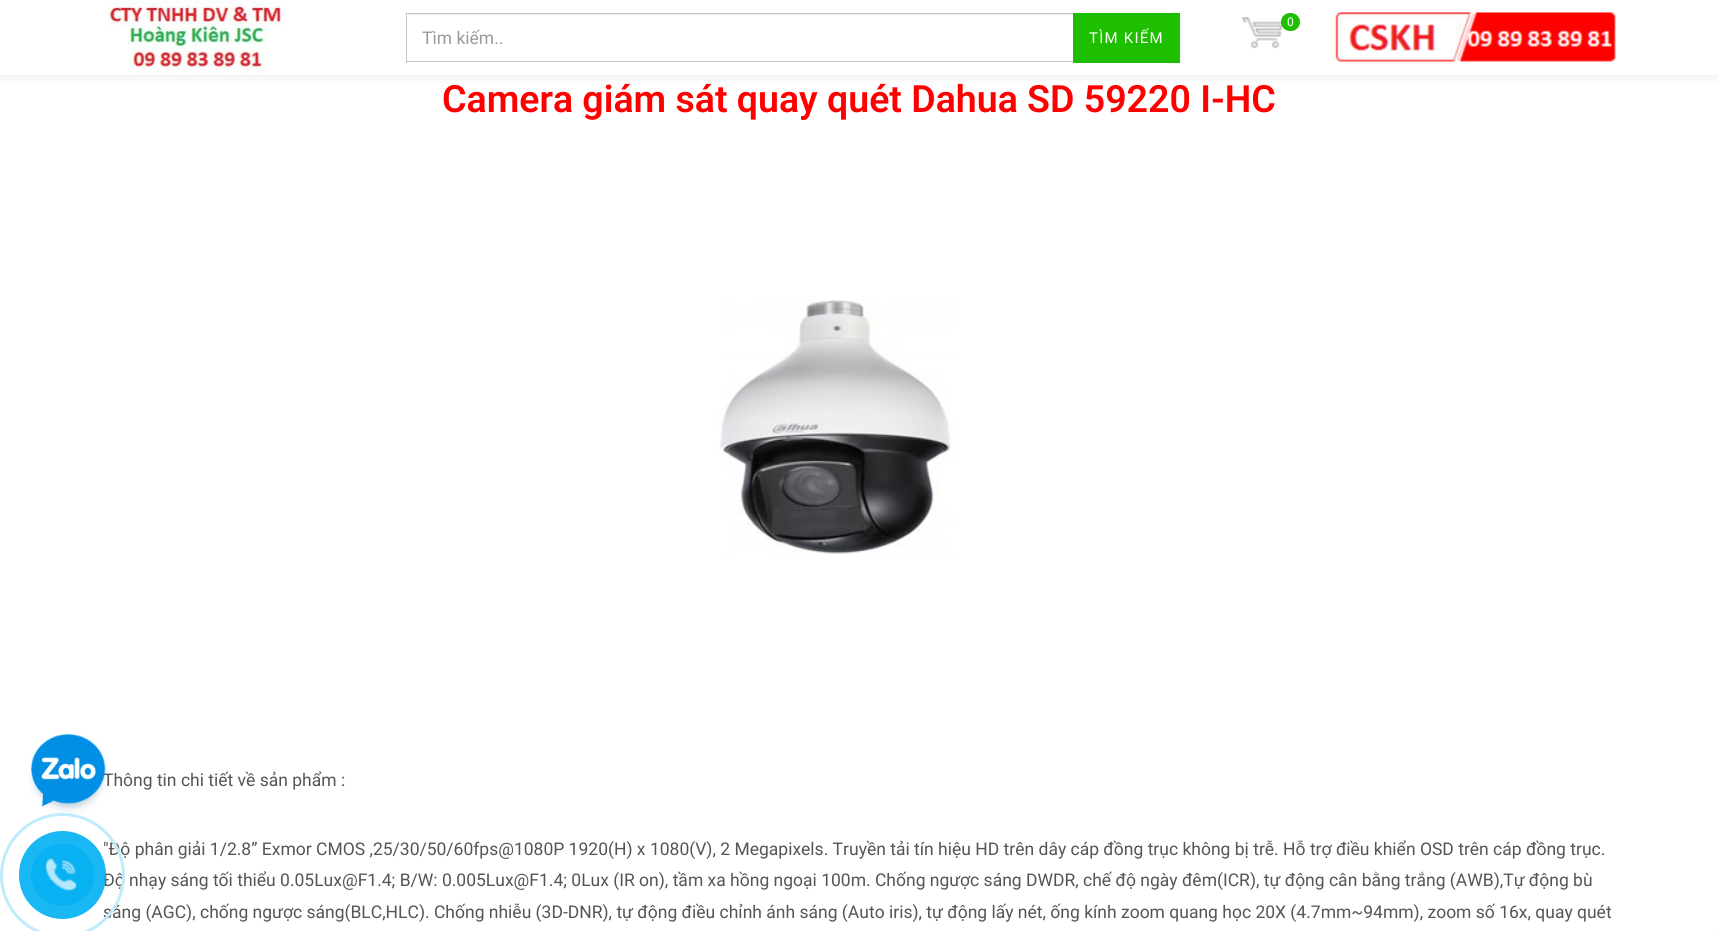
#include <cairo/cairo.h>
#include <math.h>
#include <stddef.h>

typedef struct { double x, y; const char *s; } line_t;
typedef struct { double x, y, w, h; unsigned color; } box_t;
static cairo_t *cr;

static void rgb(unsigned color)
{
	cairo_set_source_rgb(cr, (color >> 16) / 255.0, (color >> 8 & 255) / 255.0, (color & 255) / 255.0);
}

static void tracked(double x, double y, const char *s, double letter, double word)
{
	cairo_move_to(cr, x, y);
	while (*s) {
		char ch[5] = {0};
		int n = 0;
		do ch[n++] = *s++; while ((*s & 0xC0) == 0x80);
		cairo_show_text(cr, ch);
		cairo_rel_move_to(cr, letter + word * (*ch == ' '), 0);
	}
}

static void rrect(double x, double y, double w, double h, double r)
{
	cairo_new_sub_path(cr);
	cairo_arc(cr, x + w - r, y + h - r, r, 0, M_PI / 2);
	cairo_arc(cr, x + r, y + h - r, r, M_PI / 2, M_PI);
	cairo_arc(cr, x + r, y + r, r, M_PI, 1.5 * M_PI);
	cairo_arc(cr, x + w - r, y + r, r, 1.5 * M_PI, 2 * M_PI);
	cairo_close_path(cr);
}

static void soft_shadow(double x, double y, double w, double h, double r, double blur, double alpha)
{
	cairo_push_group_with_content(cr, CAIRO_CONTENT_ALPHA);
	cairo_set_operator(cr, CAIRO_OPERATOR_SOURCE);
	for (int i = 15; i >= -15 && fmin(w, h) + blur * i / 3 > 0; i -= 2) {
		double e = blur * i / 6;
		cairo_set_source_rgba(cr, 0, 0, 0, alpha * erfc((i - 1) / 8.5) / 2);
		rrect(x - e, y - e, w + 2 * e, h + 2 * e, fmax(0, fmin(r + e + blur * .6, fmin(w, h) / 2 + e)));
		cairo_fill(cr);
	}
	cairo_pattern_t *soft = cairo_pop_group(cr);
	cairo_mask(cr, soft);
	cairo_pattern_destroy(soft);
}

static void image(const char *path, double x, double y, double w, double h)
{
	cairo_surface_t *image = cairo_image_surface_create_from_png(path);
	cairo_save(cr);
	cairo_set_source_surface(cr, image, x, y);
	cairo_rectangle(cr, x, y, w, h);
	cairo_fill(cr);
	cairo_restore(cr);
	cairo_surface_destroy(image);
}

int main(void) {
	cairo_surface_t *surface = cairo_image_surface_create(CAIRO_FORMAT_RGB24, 1718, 931);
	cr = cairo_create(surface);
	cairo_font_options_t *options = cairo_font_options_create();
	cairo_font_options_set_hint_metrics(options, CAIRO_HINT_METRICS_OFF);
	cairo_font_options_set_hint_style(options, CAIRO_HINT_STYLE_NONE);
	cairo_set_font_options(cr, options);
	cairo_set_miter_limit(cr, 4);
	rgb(0xffffff);
	cairo_paint(cr);
	rgb(0x000000);
	soft_shadow(0, 0, 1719, 75, 0, 6, 0.1);
	rgb(0xffffff);
	cairo_rectangle(cr, 0, 0, 1718, 75);
	cairo_fill(cr);
	image("img/2.png", 108, 0, 178, 74);
	image("img/3.png", 1242, 17, 41, 32);
	rgb(0x1dbf00);
	rrect(1281, 13, 19, 18, 9);
	cairo_fill(cr);
	image("img/4.png", 1335, 12, 281, 50);
	{
		static const box_t items[] = {
			{408, 14, 670, 1, 0xececec},
			{406, 13, 672, 1, 0xc6c6c6},
			{406, 61, 672, 1, 0xc6c6c6},
			{406, 13, 1, 50, 0xc6c6c6},
			{1073, 13, 107, 50, 0x1dbf00},
		};
		for (size_t i = 0; i < sizeof items / sizeof *items; i++) {
			rgb(items[i].color);
			cairo_rectangle(cr, items[i].x, items[i].y, items[i].w, items[i].h);
			cairo_fill(cr);
		}
	}
	image("img/5.png", 719, 299, 238, 255);
	rgb(0xf5f5f5);
	cairo_rectangle(cr, 1716, 929, 2, 2);
	cairo_fill(cr);
	cairo_select_font_face(cr, "Roboto", CAIRO_FONT_SLANT_NORMAL, CAIRO_FONT_WEIGHT_NORMAL);
	cairo_set_font_size(cr, 12);
	rgb(0xffffff);
	cairo_move_to(cr, 1287, 26);
	cairo_show_text(cr, "0");
	cairo_set_font_size(cr, 17.5);
	rgb(0x999999);
	cairo_move_to(cr, 422, 44);
	cairo_show_text(cr, "Tìm kiếm..");
	cairo_set_font_size(cr, 15);
	rgb(0xffffff);
	tracked(1089, 43, "TÌM KIẾM", 1.25, 0);
	cairo_select_font_face(cr, "Roboto SemiBold", CAIRO_FONT_SLANT_NORMAL, CAIRO_FONT_WEIGHT_NORMAL);
	cairo_set_font_size(cr, 37.5);
	rgb(0xff0000);
	cairo_move_to(cr, 442, 112);
	cairo_show_text(cr, "Camera giám sát quay quét Dahua SD 59220 I-HC");
	cairo_select_font_face(cr, "Roboto", CAIRO_FONT_SLANT_NORMAL, CAIRO_FONT_WEIGHT_NORMAL);
	cairo_set_font_size(cr, 17.5);
	rgb(0x555555);
	cairo_move_to(cr, 103, 786);
	cairo_show_text(cr, "Thông tin chi tiết về sản phẩm :");
	image("img/1.png", 29, 734, 79, 80);
	{
		static const line_t items[] = {
			{103, 855, "\"Độ phân giải 1/2.8” Exmor CMOS ,25/30/50/60fps@1080P 1920(H) x 1080(V), 2 Megapixels. Truyền tải tín hiệu HD trên dây cáp đồng trục không bị trễ. Hỗ trợ điều khiển OSD trên cáp đồng trục."},
			{103, 886, "Độ nhạy sáng tối thiểu 0.05Lux@F1.4; B/W: 0.005Lux@F1.4; 0Lux (IR on), tầm xa hồng ngoại 100m. Chống ngược sáng DWDR, chế độ ngày đêm(ICR), tự động cân bằng trắng (AWB),Tự động bù"},
			{103, 918, "sáng (AGC), chống ngược sáng(BLC,HLC). Chống nhiễu (3D-DNR), tự động điều chỉnh ánh sáng (Auto iris), tự động lấy nét, ống kính zoom quang học 20X (4.7mm~94mm), zoom số 16x, quay quét"},
		};
		for (size_t i = 0; i < sizeof items / sizeof *items; i++) {
			cairo_move_to(cr, items[i].x, items[i].y);
			cairo_show_text(cr, items[i].s);
		}
	}
	cairo_new_path(cr);
	cairo_arc(cr, 62.5, 875.5, 61, 0, 2 * M_PI);
	rgb(0xbfebfc);
	cairo_set_line_width(cr, 3);
	cairo_stroke(cr);
	cairo_set_source_rgba(cr, 0, 0.686, 0.949, 0.9);
	rrect(19, 831, 87, 88, 43.5);
	cairo_fill(cr);
	rgb(0x08b1f2);
	rrect(31, 844, 63, 62, 31);
	cairo_fill(cr);
	image("img/6.png", 46, 858, 31, 33);
	cairo_surface_write_to_png(surface, "page.png");
	cairo_font_options_destroy(options);
	cairo_destroy(cr);
	cairo_surface_destroy(surface);
	return 0;
}
